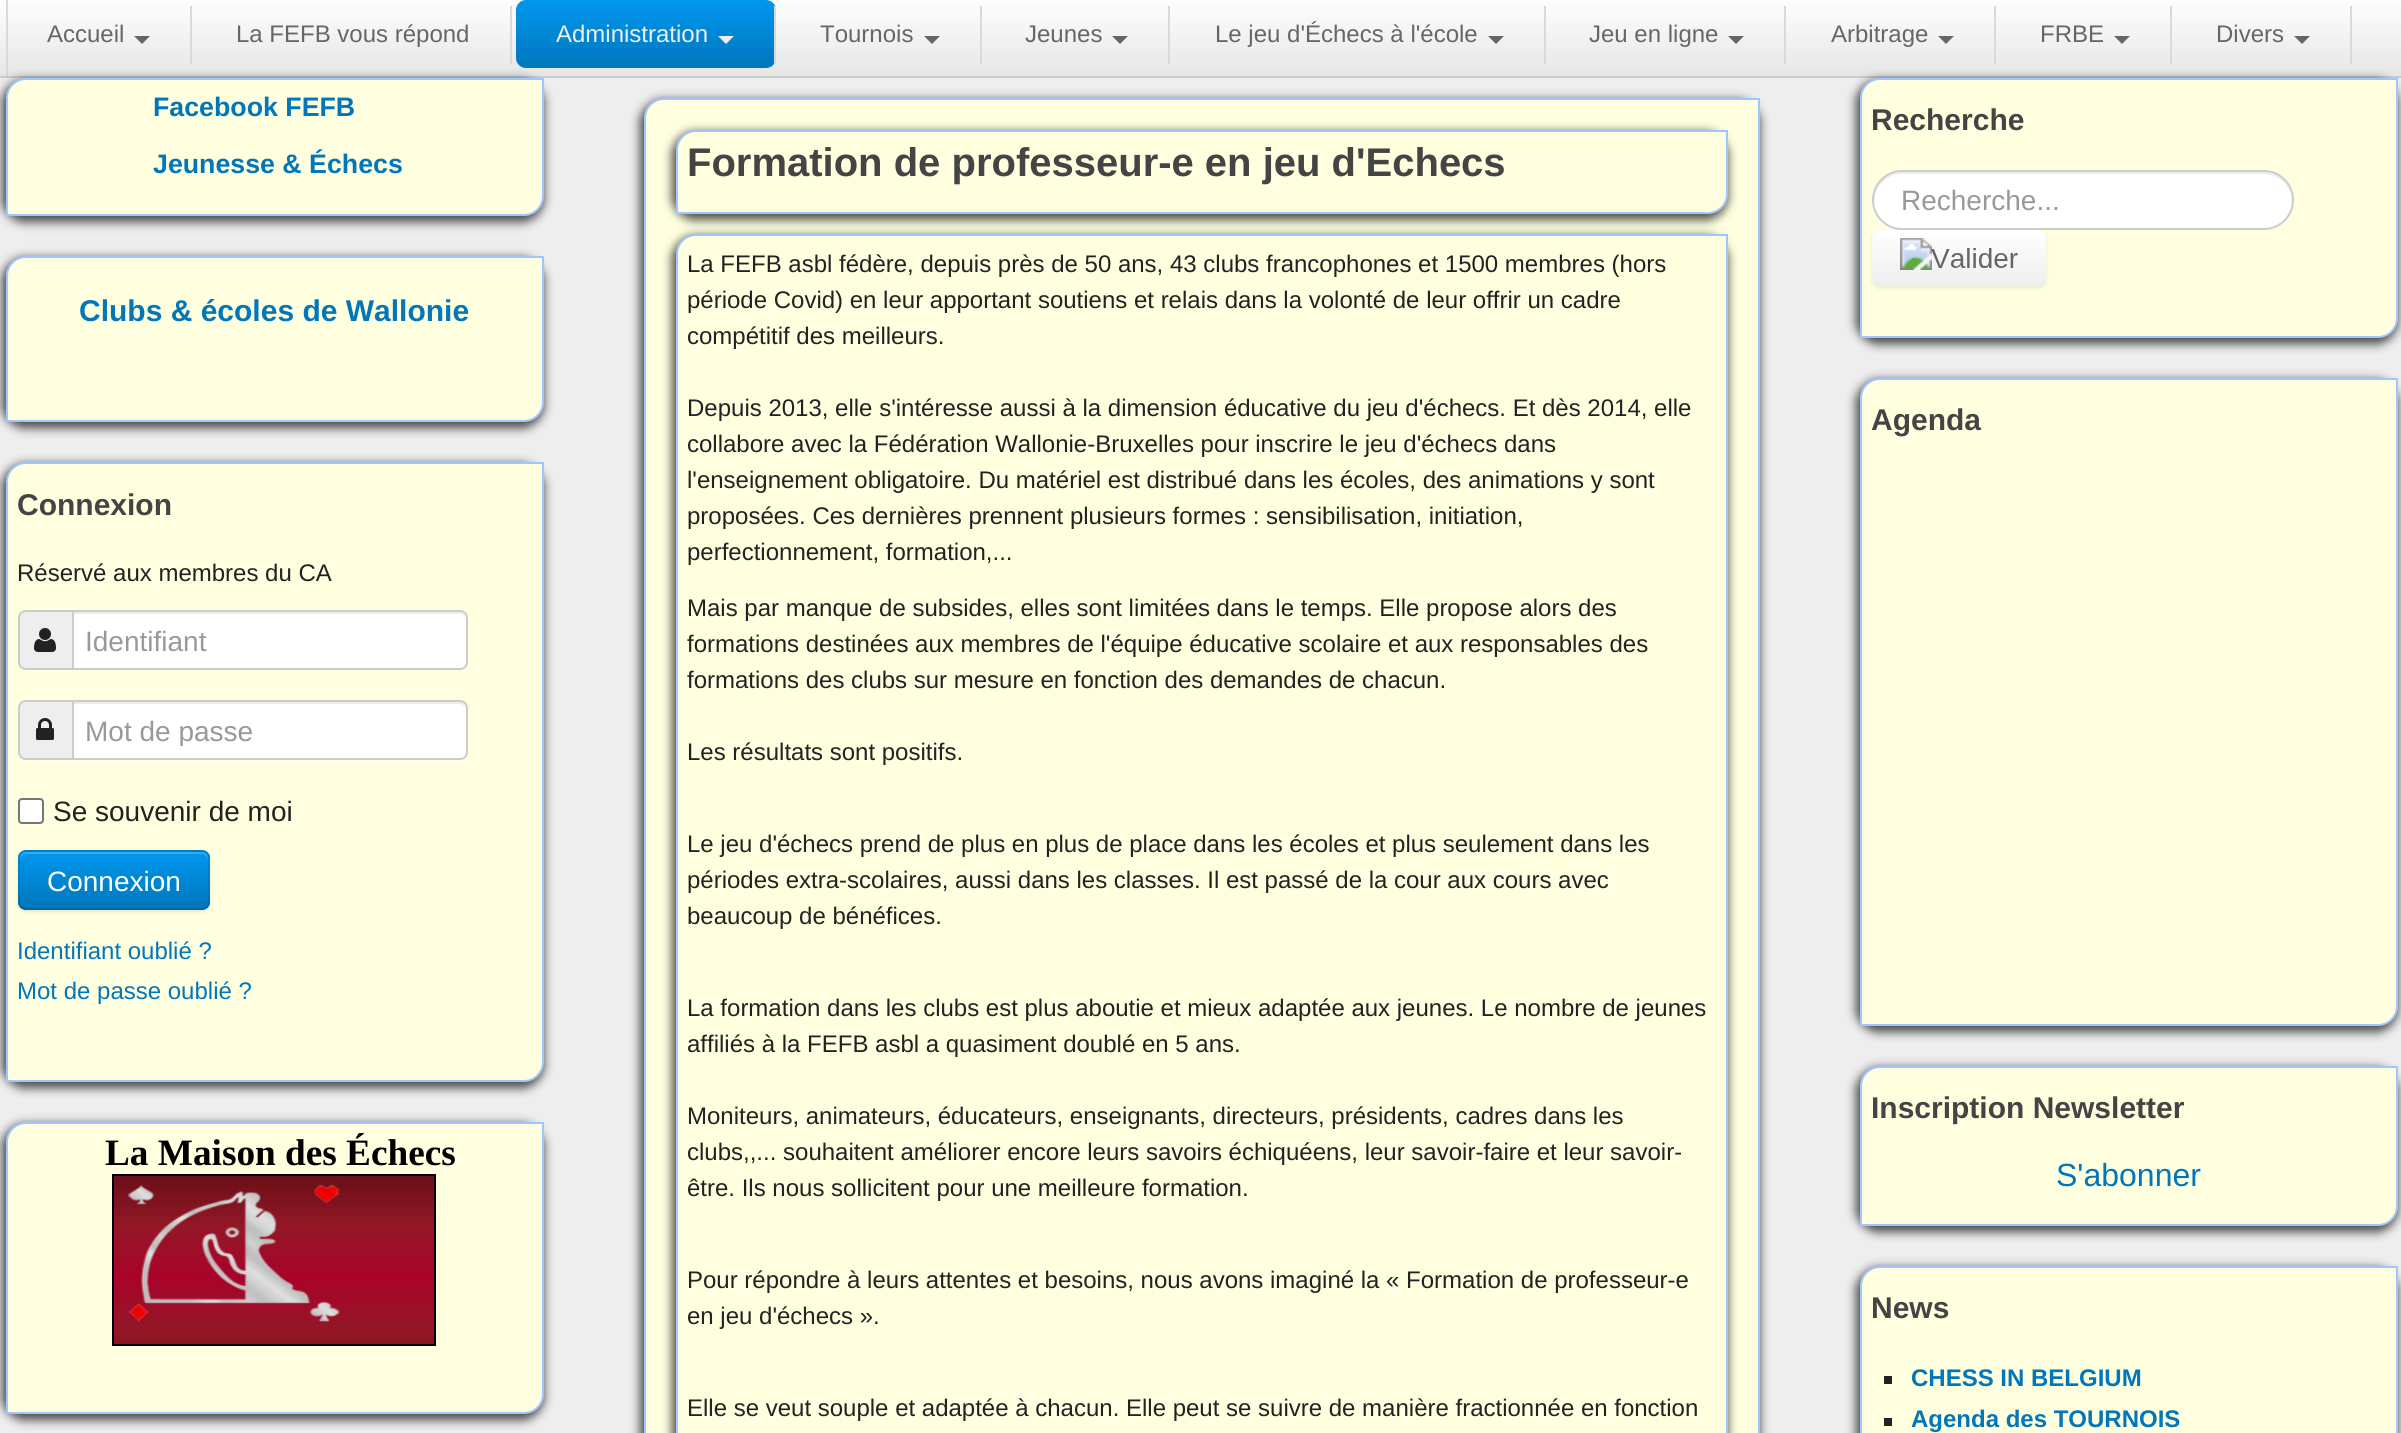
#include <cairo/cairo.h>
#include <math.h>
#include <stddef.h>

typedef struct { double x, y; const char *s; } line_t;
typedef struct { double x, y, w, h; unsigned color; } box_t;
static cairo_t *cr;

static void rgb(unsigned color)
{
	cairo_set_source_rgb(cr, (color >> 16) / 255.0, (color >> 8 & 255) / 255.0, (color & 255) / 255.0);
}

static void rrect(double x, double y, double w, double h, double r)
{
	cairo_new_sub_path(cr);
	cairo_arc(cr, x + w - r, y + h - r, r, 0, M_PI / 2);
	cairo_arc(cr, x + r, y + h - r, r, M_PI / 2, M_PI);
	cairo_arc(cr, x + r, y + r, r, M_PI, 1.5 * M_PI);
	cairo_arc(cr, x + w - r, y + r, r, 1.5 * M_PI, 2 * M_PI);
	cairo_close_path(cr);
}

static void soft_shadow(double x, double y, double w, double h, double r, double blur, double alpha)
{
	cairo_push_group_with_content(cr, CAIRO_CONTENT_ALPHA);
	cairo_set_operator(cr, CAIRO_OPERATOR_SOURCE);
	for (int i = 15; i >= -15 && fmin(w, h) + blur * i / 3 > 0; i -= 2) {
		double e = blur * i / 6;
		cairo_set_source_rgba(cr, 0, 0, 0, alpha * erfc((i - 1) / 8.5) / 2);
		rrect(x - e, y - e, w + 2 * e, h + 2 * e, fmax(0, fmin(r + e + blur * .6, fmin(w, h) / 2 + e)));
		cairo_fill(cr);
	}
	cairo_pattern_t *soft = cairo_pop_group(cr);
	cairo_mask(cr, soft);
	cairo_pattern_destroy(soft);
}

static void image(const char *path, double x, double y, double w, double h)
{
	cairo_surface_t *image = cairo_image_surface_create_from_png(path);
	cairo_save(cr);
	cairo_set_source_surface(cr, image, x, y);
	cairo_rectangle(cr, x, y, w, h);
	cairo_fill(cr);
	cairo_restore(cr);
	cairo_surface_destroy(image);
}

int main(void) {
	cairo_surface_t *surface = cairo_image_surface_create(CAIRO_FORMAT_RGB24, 2401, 1433);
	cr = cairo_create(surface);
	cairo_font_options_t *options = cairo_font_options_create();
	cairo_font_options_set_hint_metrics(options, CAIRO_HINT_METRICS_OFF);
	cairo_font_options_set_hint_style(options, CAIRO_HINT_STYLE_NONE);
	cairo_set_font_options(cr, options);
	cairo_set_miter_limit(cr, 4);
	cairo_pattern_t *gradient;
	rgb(0xeeeeee);
	cairo_paint(cr);
	gradient = cairo_pattern_create_linear(1201, -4, 1201, 76);
	cairo_pattern_add_color_stop_rgba(gradient, 0, 1, 1, 1, 1);
	cairo_pattern_add_color_stop_rgba(gradient, 1, 0.902, 0.902, 0.902, 1);
	cairo_set_source(cr, gradient);
	cairo_pattern_destroy(gradient);
	cairo_rectangle(cr, 0, 0, 2401, 76);
	cairo_fill(cr);
	{
		static const box_t items[] = {
			{0, 76, 2401, 2, 0xcccccc},
			{6, 0, 2, 76, 0xd9d9d9},
			{190, 6, 2, 58, 0xd9d9d9},
		};
		for (size_t i = 0; i < sizeof items / sizeof *items; i++) {
			rgb(items[i].color);
			cairo_rectangle(cr, items[i].x, items[i].y, items[i].w, items[i].h);
			cairo_fill(cr);
		}
	}
	rgb(0x666666);
	cairo_new_path(cr);
	cairo_move_to(cr, 134, 36);
	cairo_line_to(cr, 150, 36);
	cairo_line_to(cr, 142, 44);
	cairo_close_path(cr);
	cairo_fill(cr);
	rgb(0xd9d9d9);
	cairo_rectangle(cr, 510, 6, 2, 58);
	cairo_fill(cr);
	rgb(0x000000);
	soft_shadow(2, 80, 542, 142, 22, 5, 0.7);
	gradient = cairo_pattern_create_linear(645, 0, 645, 68);
	cairo_pattern_add_color_stop_rgba(gradient, 0, 0, 0.592, 0.933, 1);
	cairo_pattern_add_color_stop_rgba(gradient, 1, 0, 0.467, 0.733, 1);
	cairo_set_source(cr, gradient);
	cairo_pattern_destroy(gradient);
	rrect(516, 0, 260, 68, 10);
	cairo_fill(cr);
	rgb(0xd9d9d9);
	cairo_rectangle(cr, 774, 6, 2, 58);
	cairo_fill(cr);
	rgb(0xeeeeee);
	cairo_new_path(cr);
	cairo_move_to(cr, 718, 36);
	cairo_line_to(cr, 734, 36);
	cairo_line_to(cr, 726, 44);
	cairo_close_path(cr);
	cairo_fill(cr);
	rgb(0xd9d9d9);
	cairo_rectangle(cr, 980, 6, 2, 58);
	cairo_fill(cr);
	rgb(0x666666);
	cairo_new_path(cr);
	cairo_move_to(cr, 924, 36);
	cairo_line_to(cr, 940, 36);
	cairo_line_to(cr, 932, 44);
	cairo_close_path(cr);
	cairo_fill(cr);
	rgb(0xd9d9d9);
	cairo_rectangle(cr, 1168, 6, 2, 58);
	cairo_fill(cr);
	rgb(0x666666);
	cairo_new_path(cr);
	cairo_move_to(cr, 1112, 36);
	cairo_line_to(cr, 1128, 36);
	cairo_line_to(cr, 1120, 44);
	cairo_close_path(cr);
	cairo_fill(cr);
	rgb(0xd9d9d9);
	cairo_rectangle(cr, 1544, 6, 2, 58);
	cairo_fill(cr);
	rgb(0x666666);
	cairo_new_path(cr);
	cairo_move_to(cr, 1488, 36);
	cairo_line_to(cr, 1504, 36);
	cairo_line_to(cr, 1496, 44);
	cairo_close_path(cr);
	cairo_fill(cr);
	rgb(0xd9d9d9);
	cairo_rectangle(cr, 1784, 6, 2, 58);
	cairo_fill(cr);
	rgb(0x666666);
	cairo_new_path(cr);
	cairo_move_to(cr, 1728, 36);
	cairo_line_to(cr, 1744, 36);
	cairo_line_to(cr, 1736, 44);
	cairo_close_path(cr);
	cairo_fill(cr);
	rgb(0xd9d9d9);
	cairo_rectangle(cr, 1994, 6, 2, 58);
	cairo_fill(cr);
	rgb(0x666666);
	cairo_new_path(cr);
	cairo_move_to(cr, 1938, 36);
	cairo_line_to(cr, 1954, 36);
	cairo_line_to(cr, 1946, 44);
	cairo_close_path(cr);
	cairo_fill(cr);
	rgb(0xd9d9d9);
	cairo_rectangle(cr, 2170, 6, 2, 58);
	cairo_fill(cr);
	rgb(0x666666);
	cairo_new_path(cr);
	cairo_move_to(cr, 2114, 36);
	cairo_line_to(cr, 2130, 36);
	cairo_line_to(cr, 2122, 44);
	cairo_close_path(cr);
	cairo_fill(cr);
	rgb(0xd9d9d9);
	cairo_rectangle(cr, 2350, 6, 2, 58);
	cairo_fill(cr);
	rgb(0x666666);
	cairo_new_path(cr);
	cairo_move_to(cr, 2294, 36);
	cairo_line_to(cr, 2310, 36);
	cairo_line_to(cr, 2302, 44);
	cairo_close_path(cr);
	cairo_fill(cr);
	rgb(0xffffe0);
	cairo_new_path(cr);
	cairo_move_to(cr, 26, 79);
	cairo_line_to(cr, 543, 79);
	cairo_line_to(cr, 543, 196);
	cairo_curve_to(cr, 543, 206.5, 534.5, 215, 524, 215);
	cairo_line_to(cr, 7, 215);
	cairo_line_to(cr, 7, 98);
	cairo_curve_to(cr, 7, 87.5, 15.5, 79, 26, 79);
	cairo_close_path(cr);
	cairo_fill_preserve(cr);
	rgb(0x9fc6ff);
	cairo_stroke(cr);
	rgb(0x000000);
	soft_shadow(2, 258, 542, 170, 22, 5, 0.7);
	rgb(0xffffe0);
	cairo_new_path(cr);
	cairo_move_to(cr, 26, 257);
	cairo_line_to(cr, 543, 257);
	cairo_line_to(cr, 543, 402);
	cairo_curve_to(cr, 543, 412.5, 534.5, 421, 524, 421);
	cairo_line_to(cr, 7, 421);
	cairo_line_to(cr, 7, 276);
	cairo_curve_to(cr, 7, 265.5, 15.5, 257, 26, 257);
	cairo_close_path(cr);
	cairo_fill_preserve(cr);
	rgb(0x9fc6ff);
	cairo_stroke(cr);
	rgb(0x000000);
	soft_shadow(2, 464, 542, 624, 22, 5, 0.7);
	rgb(0xffffe0);
	cairo_new_path(cr);
	cairo_move_to(cr, 26, 463);
	cairo_line_to(cr, 543, 463);
	cairo_line_to(cr, 543, 1062);
	cairo_curve_to(cr, 543, 1072.5, 534.5, 1081, 524, 1081);
	cairo_line_to(cr, 7, 1081);
	cairo_line_to(cr, 7, 482);
	cairo_curve_to(cr, 7, 471.5, 15.5, 463, 26, 463);
	cairo_close_path(cr);
	cairo_fill_preserve(cr);
	rgb(0x9fc6ff);
	cairo_stroke(cr);
	rgb(0xeeeeee);
	cairo_new_path(cr);
	cairo_move_to(cr, 26, 611);
	cairo_line_to(cr, 73, 611);
	cairo_line_to(cr, 73, 669);
	cairo_line_to(cr, 26, 669);
	cairo_curve_to(cr, 22, 669, 19, 666, 19, 662);
	cairo_line_to(cr, 19, 618);
	cairo_curve_to(cr, 19, 614, 22, 611, 26, 611);
	cairo_close_path(cr);
	cairo_fill_preserve(cr);
	rgb(0xcccccc);
	cairo_stroke(cr);
	image("img/1.png", 34, 628, 22, 24);
	rgb(0xffffff);
	cairo_new_path(cr);
	cairo_move_to(cr, 72, 610);
	cairo_line_to(cr, 460, 610);
	cairo_curve_to(cr, 464.5, 610, 468, 613.5, 468, 618);
	cairo_line_to(cr, 468, 662);
	cairo_curve_to(cr, 468, 666.5, 464.5, 670, 460, 670);
	cairo_line_to(cr, 72, 670);
	cairo_close_path(cr);
	cairo_fill(cr);
	rgb(0xececec);
	cairo_new_path(cr);
	cairo_move_to(cr, 74, 614);
	cairo_line_to(cr, 460, 614);
	cairo_curve_to(cr, 463, 614, 466, 617, 466, 620);
	cairo_curve_to(cr, 466, 616, 465, 612, 460, 612);
	cairo_line_to(cr, 74, 612);
	cairo_close_path(cr);
	cairo_fill(cr);
	cairo_new_path(cr);
	cairo_move_to(cr, 73, 611);
	cairo_line_to(cr, 460, 611);
	cairo_curve_to(cr, 464, 611, 467, 614, 467, 618);
	cairo_line_to(cr, 467, 662);
	cairo_curve_to(cr, 467, 666, 464, 669, 460, 669);
	cairo_line_to(cr, 73, 669);
	cairo_close_path(cr);
	rgb(0xcccccc);
	cairo_stroke(cr);
	rgb(0xeeeeee);
	cairo_new_path(cr);
	cairo_move_to(cr, 26, 701);
	cairo_line_to(cr, 73, 701);
	cairo_line_to(cr, 73, 759);
	cairo_line_to(cr, 26, 759);
	cairo_curve_to(cr, 22, 759, 19, 756, 19, 752);
	cairo_line_to(cr, 19, 708);
	cairo_curve_to(cr, 19, 704, 22, 701, 26, 701);
	cairo_close_path(cr);
	cairo_fill_preserve(cr);
	rgb(0xcccccc);
	cairo_stroke(cr);
	image("img/2.png", 36, 718, 18, 22);
	rgb(0xffffff);
	cairo_new_path(cr);
	cairo_move_to(cr, 72, 700);
	cairo_line_to(cr, 460, 700);
	cairo_curve_to(cr, 464.5, 700, 468, 703.5, 468, 708);
	cairo_line_to(cr, 468, 752);
	cairo_curve_to(cr, 468, 756.5, 464.5, 760, 460, 760);
	cairo_line_to(cr, 72, 760);
	cairo_close_path(cr);
	cairo_fill(cr);
	rgb(0xececec);
	cairo_new_path(cr);
	cairo_move_to(cr, 74, 704);
	cairo_line_to(cr, 460, 704);
	cairo_curve_to(cr, 463, 704, 466, 707, 466, 710);
	cairo_curve_to(cr, 466, 706, 465, 702, 460, 702);
	cairo_line_to(cr, 74, 702);
	cairo_close_path(cr);
	cairo_fill(cr);
	cairo_new_path(cr);
	cairo_move_to(cr, 73, 701);
	cairo_line_to(cr, 460, 701);
	cairo_curve_to(cr, 464, 701, 467, 704, 467, 708);
	cairo_line_to(cr, 467, 752);
	cairo_curve_to(cr, 467, 756, 464, 759, 460, 759);
	cairo_line_to(cr, 73, 759);
	cairo_close_path(cr);
	rgb(0xcccccc);
	cairo_stroke(cr);
	rgb(0xffffff);
	rrect(19, 799, 24, 24, 3);
	cairo_fill_preserve(cr);
	rgb(0x767676);
	cairo_stroke(cr);
	rgb(0x000000);
	soft_shadow(18, 852, 192, 60, 8, 2, 0.1);
	rgb(0x008ada);
	rrect(18, 850, 192, 60, 8);
	cairo_fill(cr);
	cairo_save(cr);
	rrect(18, 850, 192, 60, 8);
	cairo_clip(cr);
	gradient = cairo_pattern_create_linear(114, 852, 114, 908);
	cairo_pattern_add_color_stop_rgba(gradient, 0, 0, 0.592, 0.933, 1);
	cairo_pattern_add_color_stop_rgba(gradient, 1, 0, 0.467, 0.733, 1);
	cairo_set_source(cr, gradient);
	cairo_pattern_destroy(gradient);
	cairo_rectangle(cr, 18, 852, 192, 56);
	cairo_fill(cr);
	cairo_restore(cr);
	cairo_set_source_rgba(cr, 1, 1, 1, 0.2);
	cairo_new_path(cr);
	cairo_move_to(cr, 26, 854);
	cairo_line_to(cr, 202, 854);
	cairo_curve_to(cr, 205, 854, 208, 857, 208, 860);
	cairo_line_to(cr, 208, 858);
	cairo_curve_to(cr, 208, 855, 205, 852, 202, 852);
	cairo_line_to(cr, 26, 852);
	cairo_curve_to(cr, 23, 852, 20, 855, 20, 858);
	cairo_line_to(cr, 20, 860);
	cairo_curve_to(cr, 20, 857, 23, 854, 26, 854);
	cairo_close_path(cr);
	cairo_fill(cr);
	cairo_new_path(cr);
	cairo_move_to(cr, 207, 907);
	cairo_curve_to(cr, 205.5, 908.5, 204, 909, 202, 909);
	cairo_line_to(cr, 26, 909);
	cairo_curve_to(cr, 24, 909, 22.5, 908.5, 21, 907);
	cairo_set_source_rgba(cr, 0, 0, 0, 0.25);
	cairo_stroke(cr);
	cairo_new_path(cr);
	cairo_move_to(cr, 21, 907);
	cairo_curve_to(cr, 19.5, 905.5, 19, 904, 19, 902);
	cairo_line_to(cr, 19, 858);
	cairo_curve_to(cr, 19, 856, 19.5, 854.5, 21, 853);
	cairo_curve_to(cr, 22.5, 851.5, 24, 851, 26, 851);
	cairo_line_to(cr, 202, 851);
	cairo_curve_to(cr, 204, 851, 205.5, 851.5, 207, 853);
	cairo_curve_to(cr, 208.5, 854.5, 209, 856, 209, 858);
	cairo_line_to(cr, 209, 902);
	cairo_curve_to(cr, 209, 904, 208.5, 905.5, 207, 907);
	cairo_set_source_rgba(cr, 0, 0, 0, 0.1);
	cairo_stroke(cr);
	rgb(0x000000);
	soft_shadow(2, 1124, 542, 296, 22, 5, 0.7);
	rgb(0xffffe0);
	cairo_new_path(cr);
	cairo_move_to(cr, 26, 1123);
	cairo_line_to(cr, 543, 1123);
	cairo_line_to(cr, 543, 1394);
	cairo_curve_to(cr, 543, 1404.5, 534.5, 1413, 524, 1413);
	cairo_line_to(cr, 7, 1413);
	cairo_line_to(cr, 7, 1142);
	cairo_curve_to(cr, 7, 1131.5, 15.5, 1123, 26, 1123);
	cairo_close_path(cr);
	cairo_fill_preserve(cr);
	rgb(0x9fc6ff);
	cairo_stroke(cr);
	cairo_rectangle(cr, 113, 1175, 322, 170);
	rgb(0x000000);
	cairo_stroke(cr);
	image("img/3.png", 114, 1176, 320, 168);
	rgb(0x000000);
	soft_shadow(640, 100, 1120, 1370, 22, 5, 0.7);
	rgb(0xffffe0);
	cairo_new_path(cr);
	cairo_move_to(cr, 664, 99);
	cairo_line_to(cr, 1759, 99);
	cairo_line_to(cr, 1759, 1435);
	cairo_curve_to(cr, 1759, 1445.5, 1750.5, 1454, 1740, 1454);
	cairo_line_to(cr, 645, 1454);
	cairo_line_to(cr, 645, 118);
	cairo_curve_to(cr, 645, 107.5, 653.5, 99, 664, 99);
	cairo_close_path(cr);
	cairo_fill_preserve(cr);
	rgb(0x9fc6ff);
	cairo_stroke(cr);
	rgb(0x000000);
	soft_shadow(672, 132, 1056, 88, 22, 5, 0.7);
	rgb(0xffffe0);
	cairo_new_path(cr);
	cairo_move_to(cr, 696, 131);
	cairo_line_to(cr, 1727, 131);
	cairo_line_to(cr, 1727, 194);
	cairo_curve_to(cr, 1727, 204.5, 1718.5, 213, 1708, 213);
	cairo_line_to(cr, 677, 213);
	cairo_line_to(cr, 677, 150);
	cairo_curve_to(cr, 677, 139.5, 685.5, 131, 696, 131);
	cairo_close_path(cr);
	cairo_fill_preserve(cr);
	rgb(0x9fc6ff);
	cairo_stroke(cr);
	rgb(0x000000);
	soft_shadow(672, 236, 1056, 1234, 22, 5, 0.7);
	rgb(0xffffe0);
	cairo_new_path(cr);
	cairo_move_to(cr, 696, 235);
	cairo_line_to(cr, 1727, 235);
	cairo_line_to(cr, 1727, 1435);
	cairo_curve_to(cr, 1727, 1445.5, 1718.5, 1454, 1708, 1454);
	cairo_line_to(cr, 677, 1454);
	cairo_line_to(cr, 677, 254);
	cairo_curve_to(cr, 677, 243.5, 685.5, 235, 696, 235);
	cairo_close_path(cr);
	cairo_fill_preserve(cr);
	rgb(0x9fc6ff);
	cairo_stroke(cr);
	rgb(0x000000);
	soft_shadow(1856, 80, 542, 264, 22, 5, 0.7);
	rgb(0xffffe0);
	cairo_new_path(cr);
	cairo_move_to(cr, 1880, 79);
	cairo_line_to(cr, 2397, 79);
	cairo_line_to(cr, 2397, 318);
	cairo_curve_to(cr, 2397, 328.5, 2388.5, 337, 2378, 337);
	cairo_line_to(cr, 1861, 337);
	cairo_line_to(cr, 1861, 98);
	cairo_curve_to(cr, 1861, 87.5, 1869.5, 79, 1880, 79);
	cairo_close_path(cr);
	cairo_fill_preserve(cr);
	rgb(0x9fc6ff);
	cairo_stroke(cr);
	rgb(0xffffff);
	rrect(1872, 170, 422, 60, 30);
	cairo_fill(cr);
	rgb(0xececec);
	cairo_new_path(cr);
	cairo_move_to(cr, 1902, 174);
	cairo_line_to(cr, 2264, 174);
	cairo_curve_to(cr, 2279, 174, 2291, 186, 2292, 201);
	cairo_curve_to(cr, 2293, 185, 2280, 172, 2264, 172);
	cairo_line_to(cr, 1902, 172);
	cairo_curve_to(cr, 1886, 172, 1873, 185, 1874, 201);
	cairo_curve_to(cr, 1875, 186, 1887, 174, 1902, 174);
	cairo_close_path(cr);
	cairo_fill(cr);
	rrect(1873, 171, 420, 58, 29);
	rgb(0xcccccc);
	cairo_stroke(cr);
	rgb(0x000000);
	soft_shadow(1872, 232, 174, 56, 8, 2, 0.1);
	gradient = cairo_pattern_create_linear(1959, 230, 1959, 286);
	cairo_pattern_add_color_stop_rgba(gradient, 0, 1, 1, 1, 1);
	cairo_pattern_add_color_stop_rgba(gradient, 1, 0.933, 0.933, 0.933, 1);
	cairo_set_source(cr, gradient);
	cairo_pattern_destroy(gradient);
	rrect(1872, 230, 174, 56, 8);
	cairo_fill(cr);
	image("img/4.png", 1900, 238, 118, 32);
	rgb(0x000000);
	soft_shadow(1856, 380, 542, 652, 22, 5, 0.7);
	rgb(0xffffe0);
	cairo_new_path(cr);
	cairo_move_to(cr, 1880, 379);
	cairo_line_to(cr, 2397, 379);
	cairo_line_to(cr, 2397, 1006);
	cairo_curve_to(cr, 2397, 1016.5, 2388.5, 1025, 2378, 1025);
	cairo_line_to(cr, 1861, 1025);
	cairo_line_to(cr, 1861, 398);
	cairo_curve_to(cr, 1861, 387.5, 1869.5, 379, 1880, 379);
	cairo_close_path(cr);
	cairo_fill_preserve(cr);
	rgb(0x9fc6ff);
	cairo_stroke(cr);
	rgb(0x000000);
	soft_shadow(1856, 1068, 542, 164, 22, 5, 0.7);
	rgb(0xffffe0);
	cairo_new_path(cr);
	cairo_move_to(cr, 1880, 1067);
	cairo_line_to(cr, 2397, 1067);
	cairo_line_to(cr, 2397, 1206);
	cairo_curve_to(cr, 2397, 1216.5, 2388.5, 1225, 2378, 1225);
	cairo_line_to(cr, 1861, 1225);
	cairo_line_to(cr, 1861, 1086);
	cairo_curve_to(cr, 1861, 1075.5, 1869.5, 1067, 1880, 1067);
	cairo_close_path(cr);
	cairo_fill_preserve(cr);
	rgb(0x9fc6ff);
	cairo_stroke(cr);
	rgb(0x000000);
	soft_shadow(1856, 1268, 542, 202, 22, 5, 0.7);
	rgb(0xffffe0);
	cairo_new_path(cr);
	cairo_move_to(cr, 1880, 1267);
	cairo_line_to(cr, 2397, 1267);
	cairo_line_to(cr, 2397, 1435);
	cairo_curve_to(cr, 2397, 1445.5, 2388.5, 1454, 2378, 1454);
	cairo_line_to(cr, 1861, 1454);
	cairo_line_to(cr, 1861, 1286);
	cairo_curve_to(cr, 1861, 1275.5, 1869.5, 1267, 1880, 1267);
	cairo_close_path(cr);
	cairo_fill_preserve(cr);
	rgb(0x9fc6ff);
	cairo_stroke(cr);
	rgb(0x222222);
	cairo_rectangle(cr, 1884, 1376, 8, 8);
	cairo_fill(cr);
	cairo_rectangle(cr, 1884, 1418, 8, 8);
	cairo_fill(cr);
	cairo_select_font_face(cr, "Liberation Sans", CAIRO_FONT_SLANT_NORMAL, CAIRO_FONT_WEIGHT_NORMAL);
	cairo_set_font_size(cr, 24);
	rgb(0x666666);
	cairo_move_to(cr, 47, 42);
	cairo_show_text(cr, "Accueil");
	cairo_move_to(cr, 236, 42);
	cairo_show_text(cr, "La FEFB vous répond");
	rgb(0xeeeeee);
	cairo_move_to(cr, 556, 42);
	cairo_show_text(cr, "Administration");
	rgb(0x666666);
	{
		static const line_t items[] = {
			{820, 42, "Tournois"},
			{1025, 42, "Jeunes"},
			{1215, 42, "Le jeu d'Échecs à l'école"},
			{1589, 42, "Jeu en ligne"},
			{1831, 42, "Arbitrage"},
			{2040, 42, "FRBE"},
			{2216, 42, "Divers"},
		};
		for (size_t i = 0; i < sizeof items / sizeof *items; i++) {
			cairo_move_to(cr, items[i].x, items[i].y);
			cairo_show_text(cr, items[i].s);
		}
	}
	cairo_select_font_face(cr, "Liberation Sans", CAIRO_FONT_SLANT_NORMAL, CAIRO_FONT_WEIGHT_BOLD);
	cairo_set_font_size(cr, 26.75);
	rgb(0x0077bb);
	cairo_move_to(cr, 153, 116);
	cairo_show_text(cr, "Facebook FEFB");
	cairo_move_to(cr, 153, 173);
	cairo_show_text(cr, "Jeunesse & Échecs");
	cairo_set_font_size(cr, 30);
	cairo_move_to(cr, 79, 321);
	cairo_show_text(cr, "Clubs & écoles de Wallonie");
	rgb(0x444444);
	cairo_move_to(cr, 17, 515);
	cairo_show_text(cr, "Connexion");
	cairo_select_font_face(cr, "Liberation Sans", CAIRO_FONT_SLANT_NORMAL, CAIRO_FONT_WEIGHT_NORMAL);
	cairo_set_font_size(cr, 24);
	rgb(0x222222);
	cairo_move_to(cr, 17, 581);
	cairo_show_text(cr, "Réservé aux membres du CA");
	cairo_set_font_size(cr, 28);
	rgb(0x999999);
	cairo_move_to(cr, 85, 651);
	cairo_show_text(cr, "Identifiant");
	cairo_save(cr);
	cairo_rectangle(cr, 86, 714, 368, 32);
	cairo_clip(cr);
	cairo_move_to(cr, 85, 741);
	cairo_show_text(cr, "Mot de passe");
	cairo_restore(cr);
	rgb(0x222222);
	cairo_move_to(cr, 53, 821);
	cairo_show_text(cr, "Se souvenir de moi");
	rgb(0xffffff);
	cairo_move_to(cr, 47, 891);
	cairo_show_text(cr, "Connexion");
	cairo_set_font_size(cr, 24);
	rgb(0x0077bb);
	cairo_move_to(cr, 17, 959);
	cairo_show_text(cr, "Identifiant oublié ?");
	cairo_move_to(cr, 17, 999);
	cairo_show_text(cr, "Mot de passe oublié ?");
	cairo_select_font_face(cr, "Liberation Serif", CAIRO_FONT_SLANT_NORMAL, CAIRO_FONT_WEIGHT_BOLD);
	cairo_set_font_size(cr, 37.25);
	rgb(0x000000);
	cairo_move_to(cr, 105, 1165);
	cairo_show_text(cr, "La Maison des Échecs");
	cairo_select_font_face(cr, "Liberation Sans", CAIRO_FONT_SLANT_NORMAL, CAIRO_FONT_WEIGHT_BOLD);
	cairo_set_font_size(cr, 40);
	rgb(0x444444);
	cairo_move_to(cr, 687, 176);
	cairo_show_text(cr, "Formation de professeur-e en jeu d'Echecs");
	cairo_select_font_face(cr, "Liberation Sans", CAIRO_FONT_SLANT_NORMAL, CAIRO_FONT_WEIGHT_NORMAL);
	cairo_set_font_size(cr, 24);
	rgb(0x222222);
	{
		static const line_t items[] = {
			{687, 272, "La FEFB asbl fédère, depuis près de 50 ans, 43 clubs francophones et 1500 membres (hors"},
			{687, 308, "période Covid) en leur apportant soutiens et relais dans la volonté de leur offrir un cadre"},
			{687, 344, "compétitif des meilleurs."},
			{687, 416, "Depuis 2013, elle s'intéresse aussi à la dimension éducative du jeu d'échecs. Et dès 2014, elle"},
			{687, 452, "collabore avec la Fédération Wallonie-Bruxelles pour inscrire le jeu d'échecs dans"},
			{687, 488, "l'enseignement obligatoire. Du matériel est distribué dans les écoles, des animations y sont"},
			{687, 524, "proposées. Ces dernières prennent plusieurs formes : sensibilisation, initiation,"},
			{687, 560, "perfectionnement, formation,..."},
			{687, 616, "Mais par manque de subsides, elles sont limitées dans le temps. Elle propose alors des"},
			{687, 652, "formations destinées aux membres de l'équipe éducative scolaire et aux responsables des"},
			{687, 688, "formations des clubs sur mesure en fonction des demandes de chacun."},
			{687, 760, "Les résultats sont positifs."},
			{687, 852, "Le jeu d'échecs prend de plus en plus de place dans les écoles et plus seulement dans les"},
			{687, 888, "périodes extra-scolaires, aussi dans les classes. Il est passé de la cour aux cours avec"},
			{687, 924, "beaucoup de bénéfices."},
			{687, 1016, "La formation dans les clubs est plus aboutie et mieux adaptée aux jeunes. Le nombre de jeunes"},
			{687, 1052, "affiliés à la FEFB asbl a quasiment doublé en 5 ans."},
			{687, 1124, "Moniteurs, animateurs, éducateurs, enseignants, directeurs, présidents, cadres dans les"},
			{687, 1160, "clubs,,... souhaitent améliorer encore leurs savoirs échiquéens, leur savoir-faire et leur savoir-"},
			{687, 1196, "être. Ils nous sollicitent pour une meilleure formation."},
			{687, 1288, "Pour répondre à leurs attentes et besoins, nous avons imaginé la « Formation de professeur-e"},
			{687, 1324, "en jeu d'échecs »."},
			{687, 1416, "Elle se veut souple et adaptée à chacun. Elle peut se suivre de manière fractionnée en fonction"},
		};
		for (size_t i = 0; i < sizeof items / sizeof *items; i++) {
			cairo_move_to(cr, items[i].x, items[i].y);
			cairo_show_text(cr, items[i].s);
		}
	}
	cairo_select_font_face(cr, "Liberation Sans", CAIRO_FONT_SLANT_NORMAL, CAIRO_FONT_WEIGHT_BOLD);
	cairo_set_font_size(cr, 30);
	rgb(0x444444);
	cairo_move_to(cr, 1871, 130);
	cairo_show_text(cr, "Recherche");
	cairo_select_font_face(cr, "Liberation Sans", CAIRO_FONT_SLANT_NORMAL, CAIRO_FONT_WEIGHT_NORMAL);
	cairo_set_font_size(cr, 28);
	rgb(0x999999);
	cairo_move_to(cr, 1901, 210);
	cairo_show_text(cr, "Recherche...");
	cairo_select_font_face(cr, "Liberation Sans", CAIRO_FONT_SLANT_NORMAL, CAIRO_FONT_WEIGHT_BOLD);
	cairo_set_font_size(cr, 30);
	rgb(0x444444);
	cairo_move_to(cr, 1871, 430);
	cairo_show_text(cr, "Agenda");
	cairo_move_to(cr, 1871, 1118);
	cairo_show_text(cr, "Inscription Newsletter");
	cairo_select_font_face(cr, "Liberation Sans", CAIRO_FONT_SLANT_NORMAL, CAIRO_FONT_WEIGHT_NORMAL);
	cairo_set_font_size(cr, 32);
	rgb(0x0077bb);
	cairo_move_to(cr, 2056, 1186);
	cairo_show_text(cr, "S'abonner");
	cairo_select_font_face(cr, "Liberation Sans", CAIRO_FONT_SLANT_NORMAL, CAIRO_FONT_WEIGHT_BOLD);
	cairo_set_font_size(cr, 30);
	rgb(0x444444);
	cairo_move_to(cr, 1871, 1318);
	cairo_show_text(cr, "News");
	cairo_set_font_size(cr, 24);
	rgb(0x0077bb);
	cairo_move_to(cr, 1911, 1386);
	cairo_show_text(cr, "CHESS IN BELGIUM");
	cairo_move_to(cr, 1911, 1427);
	cairo_show_text(cr, "Agenda des TOURNOIS");
	cairo_surface_write_to_png(surface, "page.png");
	cairo_font_options_destroy(options);
	cairo_destroy(cr);
	cairo_surface_destroy(surface);
	return 0;
}
